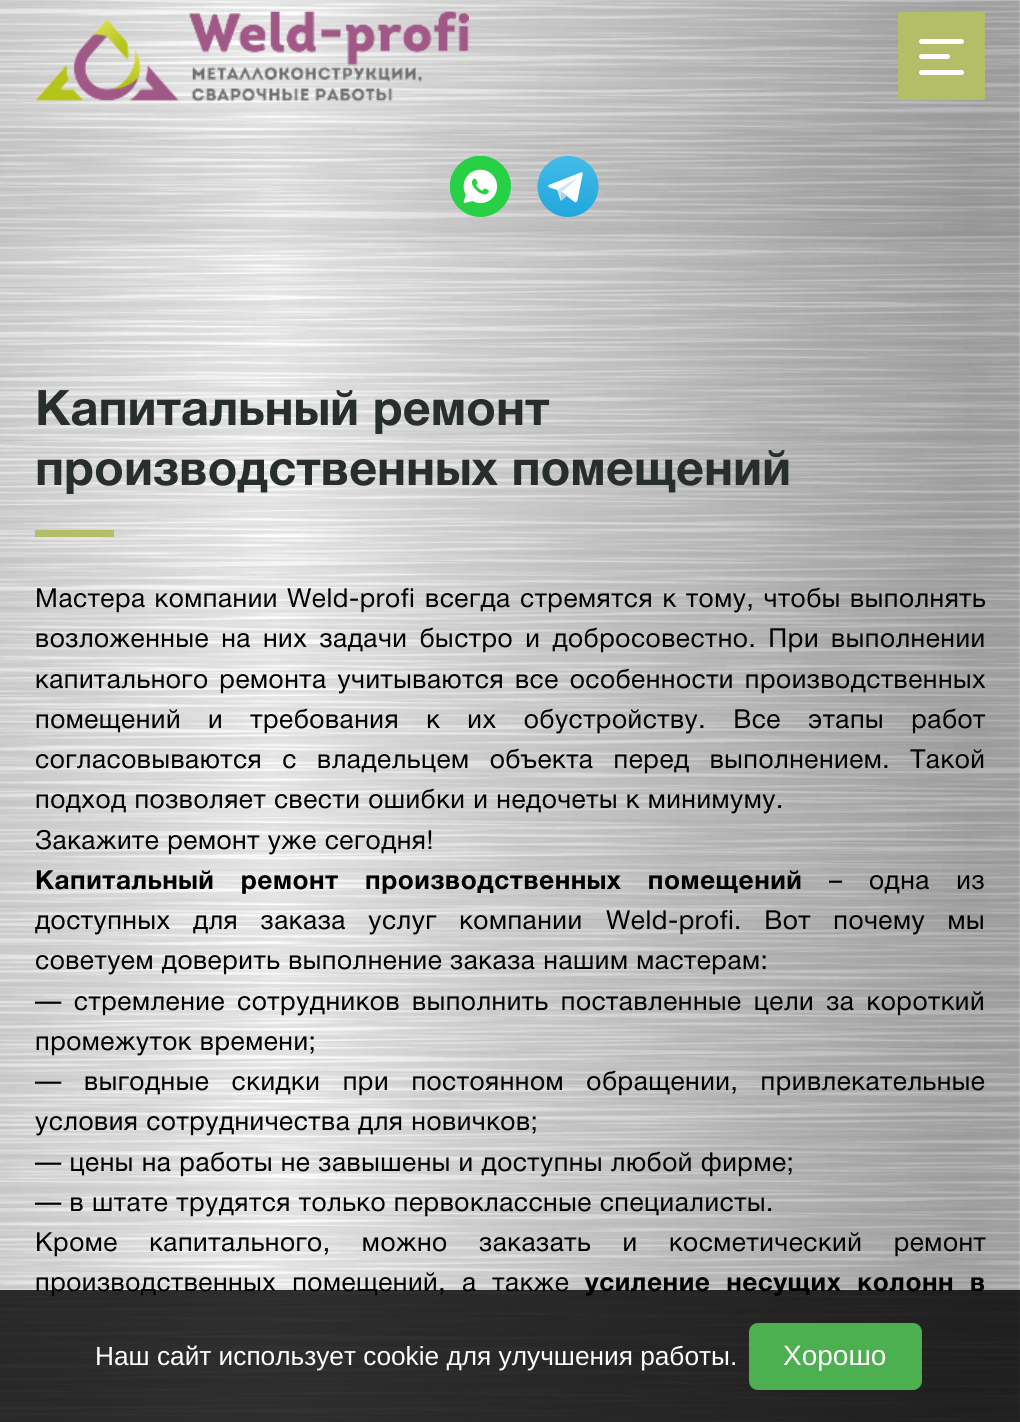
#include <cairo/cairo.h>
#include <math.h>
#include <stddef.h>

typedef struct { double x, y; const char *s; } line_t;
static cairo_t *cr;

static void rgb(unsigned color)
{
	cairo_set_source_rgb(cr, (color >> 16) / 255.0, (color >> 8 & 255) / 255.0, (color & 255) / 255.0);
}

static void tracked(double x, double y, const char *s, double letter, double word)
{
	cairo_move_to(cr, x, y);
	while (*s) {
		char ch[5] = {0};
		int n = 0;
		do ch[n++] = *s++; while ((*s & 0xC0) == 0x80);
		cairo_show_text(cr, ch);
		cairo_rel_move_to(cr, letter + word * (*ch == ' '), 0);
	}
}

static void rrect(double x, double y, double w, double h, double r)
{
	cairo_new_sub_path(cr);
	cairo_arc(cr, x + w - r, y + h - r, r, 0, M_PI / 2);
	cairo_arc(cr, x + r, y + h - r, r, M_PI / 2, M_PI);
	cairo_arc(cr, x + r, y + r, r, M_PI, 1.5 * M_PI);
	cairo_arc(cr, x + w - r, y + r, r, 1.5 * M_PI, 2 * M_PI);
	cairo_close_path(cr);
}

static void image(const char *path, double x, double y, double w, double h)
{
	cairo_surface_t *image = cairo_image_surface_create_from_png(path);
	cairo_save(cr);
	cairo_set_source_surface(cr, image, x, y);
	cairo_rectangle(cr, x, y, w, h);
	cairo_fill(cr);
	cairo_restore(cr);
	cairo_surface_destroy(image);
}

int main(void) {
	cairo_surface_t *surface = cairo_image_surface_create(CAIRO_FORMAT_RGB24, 1020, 1422);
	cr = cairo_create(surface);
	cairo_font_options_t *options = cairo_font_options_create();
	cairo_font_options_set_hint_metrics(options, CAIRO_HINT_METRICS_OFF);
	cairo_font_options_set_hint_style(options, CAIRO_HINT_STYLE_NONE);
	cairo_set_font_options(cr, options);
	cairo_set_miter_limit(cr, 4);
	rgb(0xffffff);
	cairo_paint(cr);
	image("img/1.png", 0, 0, 1020, 1422);
	image("img/2.png", 35, 11, 434, 91);
	rgb(0xb4bd67);
	rrect(898, 12, 87, 88, 2);
	cairo_fill(cr);
	rgb(0xffffff);
	rrect(919, 39, 45, 5, 2.5);
	cairo_fill(cr);
	rrect(919, 54, 31, 5, 2.5);
	cairo_fill(cr);
	rrect(919, 70, 45, 5, 2.5);
	cairo_fill(cr);
	cairo_set_source_rgba(cr, 0, 0, 0, 0.04);
	cairo_rectangle(cr, 0, 130, 1020, 113);
	cairo_fill(cr);
	image("img/3.png", 450, 156, 61, 61);
	image("img/4.png", 537, 156, 62, 61);
	rgb(0xb4bd67);
	cairo_rectangle(cr, 35, 530, 79, 7);
	cairo_fill(cr);
	cairo_select_font_face(cr, "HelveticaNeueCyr", CAIRO_FONT_SLANT_NORMAL, CAIRO_FONT_WEIGHT_BOLD);
	cairo_set_font_size(cr, 49);
	rgb(0x282d2e);
	cairo_move_to(cr, 35, 425);
	cairo_show_text(cr, "Капитальный ремонт");
	cairo_move_to(cr, 35, 485);
	cairo_show_text(cr, "производственных помещений");
	cairo_select_font_face(cr, "HelveticaNeueCyr", CAIRO_FONT_SLANT_NORMAL, CAIRO_FONT_WEIGHT_NORMAL);
	cairo_set_font_size(cr, 26.25);
	rgb(0x000000);
	tracked(35, 607, "Мастера компании", 0.53, 1);
	tracked(287, 607, "Weld-profi", 0.53, 0);
	tracked(425, 607, "всегда стремятся к тому, чтобы выполнять", 0.53, 1.5);
	tracked(35, 647, "возложенные на них задачи быстро и добросовестно. При выполнении", 0.53, 4.25);
	tracked(35, 688, "капитального ремонта учитываются все особенности производственных", 0.53, 3);
	tracked(35, 728, "помещений и требования к их обустройству. Все этапы работ", 0.53, 19.25);
	tracked(35, 768, "согласовываются с владельцем объекта перед выполнением. Такой", 0.53, 12.25);
	tracked(35, 808, "подход позволяет свести ошибки и недочеты к минимуму.", 0.53, 0);
	tracked(35, 849, "Закажите ремонт уже сегодня!", 0.53, 0);
	cairo_select_font_face(cr, "HelveticaNeueCyr", CAIRO_FONT_SLANT_NORMAL, CAIRO_FONT_WEIGHT_BOLD);
	tracked(35, 889, "Капитальный ремонт производственных помещений", 0.53, 18.5);
	cairo_select_font_face(cr, "HelveticaNeueCyr", CAIRO_FONT_SLANT_NORMAL, CAIRO_FONT_WEIGHT_NORMAL);
	tracked(829, 889, "– одна из", 0.53, 18.5);
	tracked(35, 929, "доступных для заказа услуг компании", 0.53, 14.5);
	tracked(606, 929, "Weld-profi", 0.53, 0);
	tracked(734, 929, ". Вот почему мы", 0.53, 14.5);
	tracked(35, 969, "советуем доверить выполнение заказа нашим мастерам:", 0.53, 0);
	tracked(35, 1010, "— стремление сотрудников выполнить поставленные цели за короткий", 0.53, 4.25);
	tracked(35, 1050, "промежуток времени;", 0.53, 0);
	tracked(35, 1090, "— выгодные скидки при постоянном обращении, привлекательные", 0.53, 14.5);
	{
		static const line_t items[] = {
			{35, 1130, "условия сотрудничества для новичков;"},
			{35, 1171, "— цены на работы не завышены и доступны любой фирме;"},
			{35, 1211, "— в штате трудятся только первоклассные специалисты."},
		};
		for (size_t i = 0; i < sizeof items / sizeof *items; i++) {
			tracked(items[i].x, items[i].y, items[i].s, 0.53, 0);
		}
	}
	tracked(35, 1251, "Кроме капитального, можно заказать и косметический ремонт", 0.53, 23.5);
	tracked(35, 1291, "производственных помещений, а также", 0.53, 8);
	cairo_select_font_face(cr, "HelveticaNeueCyr", CAIRO_FONT_SLANT_NORMAL, CAIRO_FONT_WEIGHT_BOLD);
	tracked(585, 1291, "усиление несущих колонн в", 0.53, 8);
	cairo_set_source_rgba(cr, 0, 0, 0, 0.8);
	cairo_rectangle(cr, 0, 1290, 1020, 132);
	cairo_fill(cr);
	cairo_select_font_face(cr, "Liberation Sans", CAIRO_FONT_SLANT_NORMAL, CAIRO_FONT_WEIGHT_NORMAL);
	rgb(0xffffff);
	cairo_move_to(cr, 95, 1365);
	cairo_show_text(cr, "Наш сайт использует cookie для улучшения работы.");
	rgb(0x4caf50);
	rrect(749, 1323, 173, 67, 9);
	cairo_fill(cr);
	cairo_set_font_size(cr, 28);
	rgb(0xffffff);
	cairo_move_to(cr, 783, 1365);
	cairo_show_text(cr, "Хорошо");
	cairo_surface_write_to_png(surface, "page.png");
	cairo_font_options_destroy(options);
	cairo_destroy(cr);
	cairo_surface_destroy(surface);
	return 0;
}
